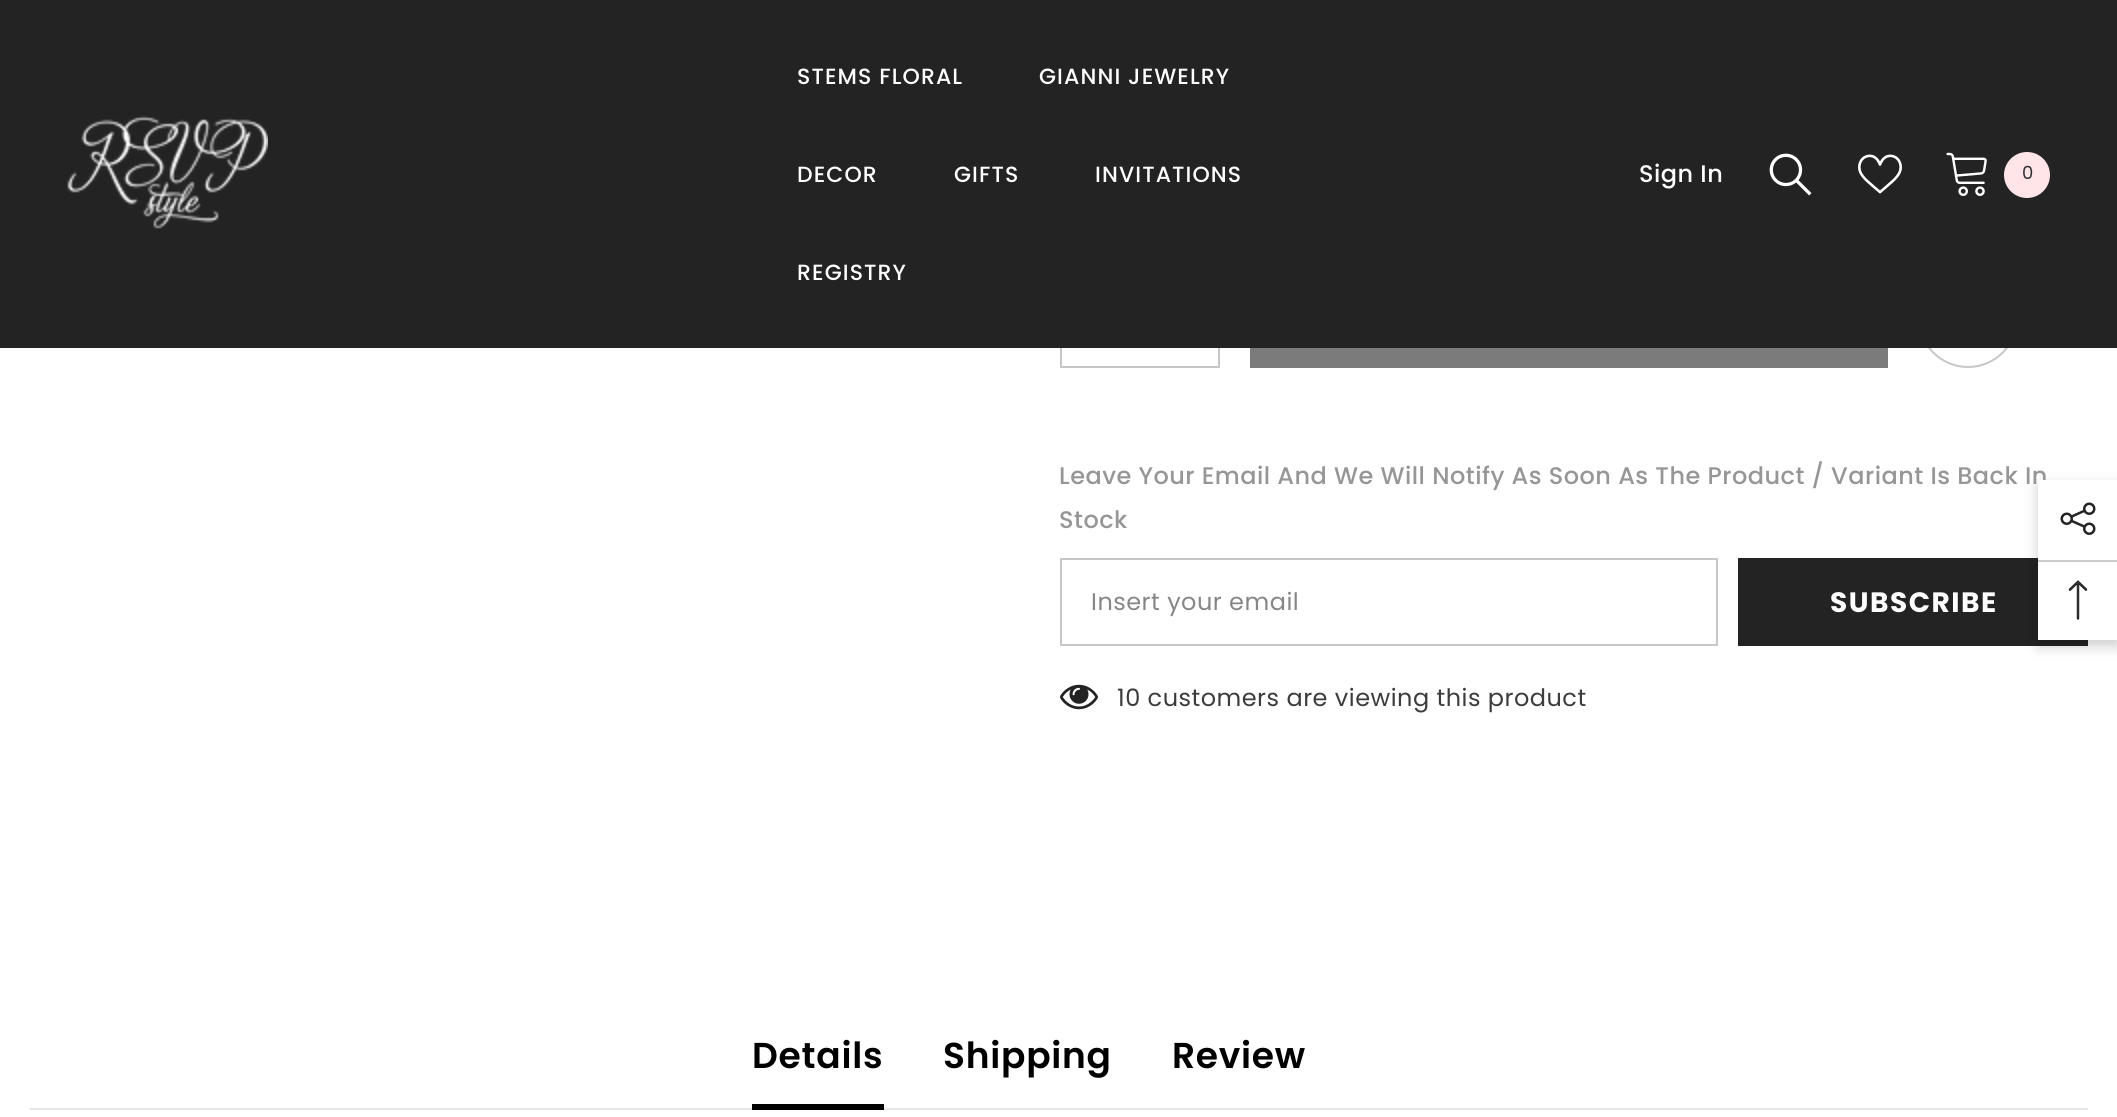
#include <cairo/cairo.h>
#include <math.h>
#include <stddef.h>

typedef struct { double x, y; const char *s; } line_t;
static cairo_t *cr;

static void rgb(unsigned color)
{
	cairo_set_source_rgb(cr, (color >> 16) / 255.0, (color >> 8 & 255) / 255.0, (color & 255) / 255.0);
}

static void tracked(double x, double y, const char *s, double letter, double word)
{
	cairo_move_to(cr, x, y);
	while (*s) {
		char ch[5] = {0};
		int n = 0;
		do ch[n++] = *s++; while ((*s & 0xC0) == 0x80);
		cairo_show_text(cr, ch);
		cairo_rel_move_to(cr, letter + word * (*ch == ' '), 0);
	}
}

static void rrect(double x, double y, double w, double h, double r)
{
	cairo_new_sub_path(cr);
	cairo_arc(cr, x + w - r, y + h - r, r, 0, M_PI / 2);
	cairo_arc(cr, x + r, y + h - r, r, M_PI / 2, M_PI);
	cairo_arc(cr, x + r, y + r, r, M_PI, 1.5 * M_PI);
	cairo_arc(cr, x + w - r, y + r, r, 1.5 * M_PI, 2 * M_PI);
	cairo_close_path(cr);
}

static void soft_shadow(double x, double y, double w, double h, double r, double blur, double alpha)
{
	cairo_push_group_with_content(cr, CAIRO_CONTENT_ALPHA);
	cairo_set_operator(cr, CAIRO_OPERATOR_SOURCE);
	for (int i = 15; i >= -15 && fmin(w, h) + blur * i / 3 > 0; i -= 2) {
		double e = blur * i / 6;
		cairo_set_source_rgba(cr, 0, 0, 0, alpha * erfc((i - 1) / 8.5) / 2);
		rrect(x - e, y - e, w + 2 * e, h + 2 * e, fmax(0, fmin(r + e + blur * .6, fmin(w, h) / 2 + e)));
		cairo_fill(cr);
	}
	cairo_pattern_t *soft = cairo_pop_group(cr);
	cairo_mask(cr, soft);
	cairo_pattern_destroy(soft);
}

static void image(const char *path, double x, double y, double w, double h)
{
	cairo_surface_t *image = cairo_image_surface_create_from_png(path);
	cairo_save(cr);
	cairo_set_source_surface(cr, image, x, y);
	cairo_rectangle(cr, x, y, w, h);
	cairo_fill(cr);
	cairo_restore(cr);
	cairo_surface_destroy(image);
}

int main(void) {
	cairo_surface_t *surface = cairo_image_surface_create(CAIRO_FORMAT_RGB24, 2117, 1117);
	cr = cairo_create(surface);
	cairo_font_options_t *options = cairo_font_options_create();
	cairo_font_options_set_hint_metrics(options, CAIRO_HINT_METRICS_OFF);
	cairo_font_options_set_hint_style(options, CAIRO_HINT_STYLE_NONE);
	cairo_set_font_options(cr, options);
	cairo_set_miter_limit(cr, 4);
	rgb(0xffffff);
	cairo_paint(cr);
	cairo_rectangle(cr, 1061, 269, 158, 98);
	rgb(0xc7c7c7);
	cairo_stroke(cr);
	cairo_arc(cr, 1968, 318, 49, 0, 2 * M_PI);
	cairo_stroke(cr);
	rgb(0x232323);
	cairo_rectangle(cr, 0, 0, 2117, 348);
	cairo_fill(cr);
	image("img/1.png", 67, 115, 201, 114);
	image("img/2.png", 1769, 153, 43, 43);
	image("img/3.png", 1858, 154, 44, 40);
	image("img/4.png", 1946, 152, 41, 44);
	rgb(0xffe5e8);
	cairo_arc(cr, 2027, 175, 23, 0, 2 * M_PI);
	cairo_fill(cr);
	rgb(0x7b7b7b);
	cairo_rectangle(cr, 1250, 348, 638, 20);
	cairo_fill(cr);
	cairo_rectangle(cr, 1061, 559, 656, 86);
	rgb(0xc7c7c7);
	cairo_stroke(cr);
	rgb(0x232323);
	cairo_rectangle(cr, 1738, 558, 350, 88);
	cairo_fill(cr);
	image("img/5.png", 1060, 684, 38, 26);
	rgb(0xe6e6e6);
	cairo_rectangle(cr, 30, 1108, 2058, 2);
	cairo_fill(cr);
	rgb(0x000000);
	cairo_rectangle(cr, 752, 1104, 132, 6);
	cairo_fill(cr);
	rgb(0x000000);
	soft_shadow(2038, 486, 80, 160, 0, 7, 0.2);
	cairo_select_font_face(cr, "Poppins Medium", CAIRO_FONT_SLANT_NORMAL, CAIRO_FONT_WEIGHT_NORMAL);
	cairo_set_font_size(cr, 22);
	rgb(0xffffff);
	{
		static const line_t items[] = {
			{797, 84, "STEMS FLORAL"},
			{1039, 84, "GIANNI JEWELRY"},
			{797, 182, "DECOR"},
			{954, 182, "GIFTS"},
			{1095, 182, "INVITATIONS"},
			{797, 280, "REGISTRY"},
		};
		for (size_t i = 0; i < sizeof items / sizeof *items; i++) {
			tracked(items[i].x, items[i].y, items[i].s, 1.1, 0);
		}
	}
	cairo_set_font_size(cr, 24);
	tracked(1639, 182, "Sign In", 0.48, 0);
	cairo_select_font_face(cr, "Poppins", CAIRO_FONT_SLANT_NORMAL, CAIRO_FONT_WEIGHT_NORMAL);
	cairo_set_font_size(cr, 18);
	rgb(0x323232);
	cairo_move_to(cr, 2022, 179);
	cairo_show_text(cr, "0");
	cairo_select_font_face(cr, "Poppins Medium", CAIRO_FONT_SLANT_NORMAL, CAIRO_FONT_WEIGHT_NORMAL);
	cairo_set_font_size(cr, 24);
	rgb(0x969696);
	tracked(1059, 484, "Leave Your Email And We Will Notify As Soon As The Product / Variant Is Back In", 0.48, 0);
	tracked(1059, 528, "Stock", 0.48, 0);
	cairo_select_font_face(cr, "Poppins", CAIRO_FONT_SLANT_NORMAL, CAIRO_FONT_WEIGHT_NORMAL);
	rgb(0x868686);
	tracked(1091, 610, "Insert your email", 0.48, 0);
	cairo_select_font_face(cr, "Poppins", CAIRO_FONT_SLANT_NORMAL, CAIRO_FONT_WEIGHT_BOLD);
	cairo_set_font_size(cr, 28);
	rgb(0xffffff);
	tracked(1830, 612, "SUBSCRIBE", 1.5, 0);
	cairo_select_font_face(cr, "Poppins", CAIRO_FONT_SLANT_NORMAL, CAIRO_FONT_WEIGHT_NORMAL);
	cairo_set_font_size(cr, 24);
	rgb(0x3c3c3c);
	tracked(1117, 706, "10 customers are viewing this product", 0.48, 0);
	cairo_select_font_face(cr, "Poppins SemiBold", CAIRO_FONT_SLANT_NORMAL, CAIRO_FONT_WEIGHT_NORMAL);
	cairo_set_font_size(cr, 36);
	rgb(0x000000);
	{
		static const line_t items[] = {
			{752, 1068, "Details"},
			{943, 1068, "Shipping"},
			{1172, 1068, "Review"},
		};
		for (size_t i = 0; i < sizeof items / sizeof *items; i++) {
			tracked(items[i].x, items[i].y, items[i].s, 0.75, 0);
		}
	}
	rgb(0xffffff);
	cairo_rectangle(cr, 2038, 480, 79, 160);
	cairo_fill(cr);
	image("img/6.png", 2060, 502, 36, 33);
	rgb(0xcccccc);
	cairo_rectangle(cr, 2038, 560, 79, 2);
	cairo_fill(cr);
	image("img/7.png", 2068, 580, 20, 40);
	cairo_surface_write_to_png(surface, "page.png");
	cairo_font_options_destroy(options);
	cairo_destroy(cr);
	cairo_surface_destroy(surface);
	return 0;
}
